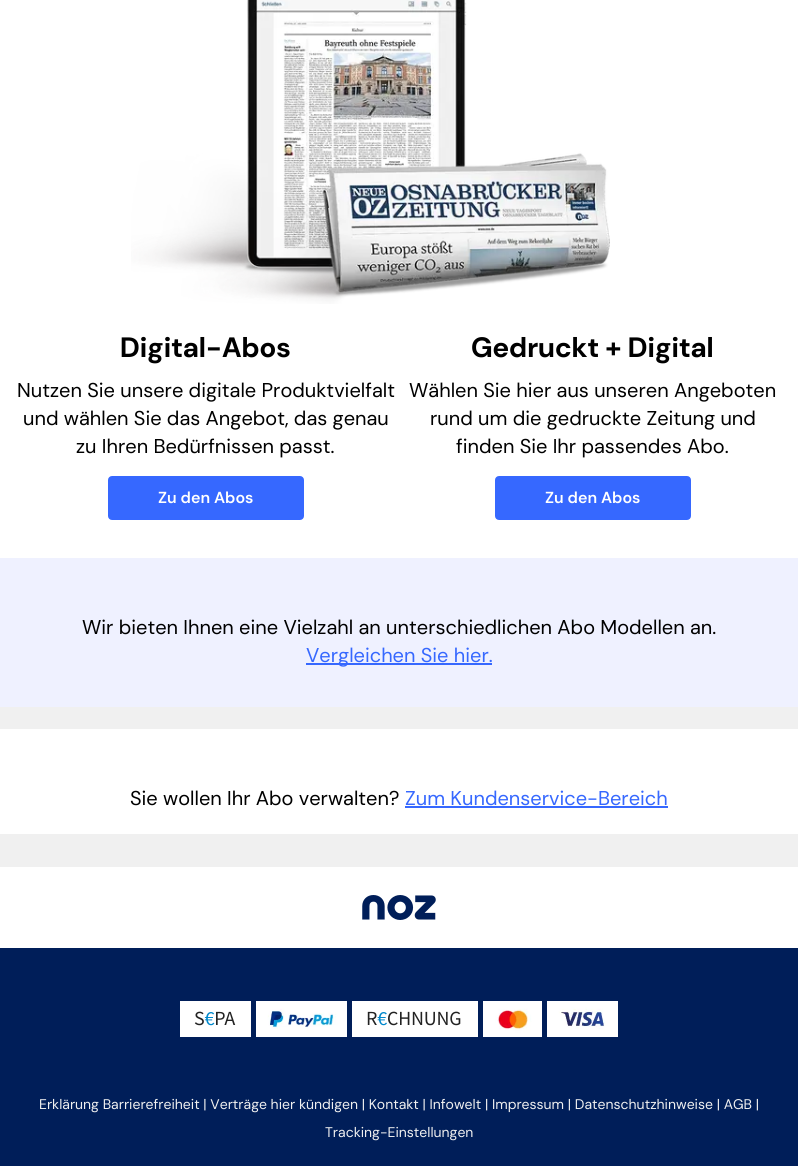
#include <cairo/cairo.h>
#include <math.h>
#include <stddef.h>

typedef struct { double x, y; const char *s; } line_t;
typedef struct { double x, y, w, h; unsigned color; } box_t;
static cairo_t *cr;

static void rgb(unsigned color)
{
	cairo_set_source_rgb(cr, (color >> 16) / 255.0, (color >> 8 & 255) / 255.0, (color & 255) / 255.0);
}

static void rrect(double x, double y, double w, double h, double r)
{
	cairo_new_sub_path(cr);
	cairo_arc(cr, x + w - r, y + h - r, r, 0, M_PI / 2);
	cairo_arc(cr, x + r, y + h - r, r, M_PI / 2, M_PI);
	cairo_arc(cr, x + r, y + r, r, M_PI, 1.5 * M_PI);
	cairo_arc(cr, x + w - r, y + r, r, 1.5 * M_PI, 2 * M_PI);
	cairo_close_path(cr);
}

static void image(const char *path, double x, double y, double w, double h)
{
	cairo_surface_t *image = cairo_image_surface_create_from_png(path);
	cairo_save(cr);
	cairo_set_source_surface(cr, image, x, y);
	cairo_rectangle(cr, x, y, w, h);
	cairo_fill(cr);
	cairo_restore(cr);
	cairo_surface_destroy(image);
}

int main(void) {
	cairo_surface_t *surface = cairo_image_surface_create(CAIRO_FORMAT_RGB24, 798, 1166);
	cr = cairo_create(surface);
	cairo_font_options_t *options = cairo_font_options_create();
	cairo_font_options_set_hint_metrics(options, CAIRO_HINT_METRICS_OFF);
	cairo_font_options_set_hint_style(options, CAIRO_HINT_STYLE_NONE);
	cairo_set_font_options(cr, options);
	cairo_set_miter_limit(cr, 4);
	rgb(0x001e59);
	cairo_paint(cr);
	rgb(0xf0f0f0);
	cairo_rectangle(cr, 0, 707, 798, 160);
	cairo_fill(cr);
	rgb(0xffffff);
	cairo_rectangle(cr, 0, 0, 798, 558);
	cairo_fill(cr);
	image("img/1.png", 131, 0, 479, 304);
	rgb(0x3668ff);
	rrect(109, 477, 194, 42, 3);
	cairo_fill_preserve(cr);
	cairo_stroke(cr);
	rrect(496, 477, 194, 42, 3);
	cairo_fill_preserve(cr);
	cairo_stroke(cr);
	{
		static const box_t items[] = {
			{0, 558, 798, 149, 0xeff1ff},
			{306, 663, 186, 2, 0x3668ff},
			{0, 729, 798, 105, 0xffffff},
			{405, 806, 263, 2, 0x3668ff},
			{0, 867, 798, 81, 0xffffff},
		};
		for (size_t i = 0; i < sizeof items / sizeof *items; i++) {
			rgb(items[i].color);
			cairo_rectangle(cr, items[i].x, items[i].y, items[i].w, items[i].h);
			cairo_fill(cr);
		}
	}
	image("img/2.png", 362, 895, 74, 25);
	image("img/3.png", 180, 1001, 71, 36);
	image("img/4.png", 256, 1001, 91, 36);
	image("img/5.png", 352, 1001, 126, 36);
	image("img/6.png", 483, 1001, 59, 36);
	image("img/7.png", 547, 1001, 71, 36);
	cairo_select_font_face(cr, "DM Sans", CAIRO_FONT_SLANT_NORMAL, CAIRO_FONT_WEIGHT_BOLD);
	cairo_set_font_size(cr, 28);
	rgb(0x000000);
	cairo_move_to(cr, 120, 357);
	cairo_show_text(cr, "Digital-Abos");
	cairo_select_font_face(cr, "DM Sans", CAIRO_FONT_SLANT_NORMAL, CAIRO_FONT_WEIGHT_NORMAL);
	cairo_set_font_size(cr, 20);
	{
		static const line_t items[] = {
			{17, 397, "Nutzen Sie unsere digitale Produktvielfalt"},
			{23, 425, "und wählen Sie das Angebot, das genau"},
			{76, 453, "zu Ihren Bedürfnissen passt."},
		};
		for (size_t i = 0; i < sizeof items / sizeof *items; i++) {
			cairo_move_to(cr, items[i].x, items[i].y);
			cairo_show_text(cr, items[i].s);
		}
	}
	cairo_select_font_face(cr, "DM Sans SemiBold", CAIRO_FONT_SLANT_NORMAL, CAIRO_FONT_WEIGHT_NORMAL);
	cairo_set_font_size(cr, 16);
	rgb(0xffffff);
	cairo_move_to(cr, 158, 503);
	cairo_show_text(cr, "Zu den Abos");
	cairo_select_font_face(cr, "DM Sans", CAIRO_FONT_SLANT_NORMAL, CAIRO_FONT_WEIGHT_BOLD);
	cairo_set_font_size(cr, 28);
	rgb(0x000000);
	cairo_move_to(cr, 471, 357);
	cairo_show_text(cr, "Gedruckt + Digital");
	cairo_select_font_face(cr, "DM Sans", CAIRO_FONT_SLANT_NORMAL, CAIRO_FONT_WEIGHT_NORMAL);
	cairo_set_font_size(cr, 20);
	{
		static const line_t items[] = {
			{409, 397, "Wählen Sie hier aus unseren Angeboten"},
			{430, 425, "rund um die gedruckte Zeitung und"},
			{456, 453, "finden Sie Ihr passendes Abo."},
		};
		for (size_t i = 0; i < sizeof items / sizeof *items; i++) {
			cairo_move_to(cr, items[i].x, items[i].y);
			cairo_show_text(cr, items[i].s);
		}
	}
	cairo_select_font_face(cr, "DM Sans SemiBold", CAIRO_FONT_SLANT_NORMAL, CAIRO_FONT_WEIGHT_NORMAL);
	cairo_set_font_size(cr, 16);
	rgb(0xffffff);
	cairo_move_to(cr, 545, 503);
	cairo_show_text(cr, "Zu den Abos");
	cairo_select_font_face(cr, "DM Sans", CAIRO_FONT_SLANT_NORMAL, CAIRO_FONT_WEIGHT_NORMAL);
	cairo_set_font_size(cr, 20);
	rgb(0x000000);
	cairo_move_to(cr, 82, 634);
	cairo_show_text(cr, "Wir bieten Ihnen eine Vielzahl an unterschiedlichen Abo Modellen an.");
	rgb(0x3668ff);
	cairo_move_to(cr, 306, 662);
	cairo_show_text(cr, "Vergleichen Sie hier.");
	rgb(0x000000);
	cairo_move_to(cr, 130, 805);
	cairo_show_text(cr, "Sie wollen Ihr Abo verwalten?");
	rgb(0x3668ff);
	cairo_move_to(cr, 405, 805);
	cairo_show_text(cr, "Zum Kundenservice-Bereich");
	cairo_select_font_face(cr, "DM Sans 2", CAIRO_FONT_SLANT_NORMAL, CAIRO_FONT_WEIGHT_NORMAL);
	cairo_set_font_size(cr, 14);
	rgb(0xf0f0f0);
	cairo_move_to(cr, 39, 1109);
	cairo_show_text(cr, "Erklärung Barrierefreiheit | Verträge hier kündigen | Kontakt | Infowelt | Impressum | Datenschutzhinweise | AGB |");
	cairo_move_to(cr, 325, 1137);
	cairo_show_text(cr, "Tracking-Einstellungen");
	cairo_surface_write_to_png(surface, "page.png");
	cairo_font_options_destroy(options);
	cairo_destroy(cr);
	cairo_surface_destroy(surface);
	return 0;
}
